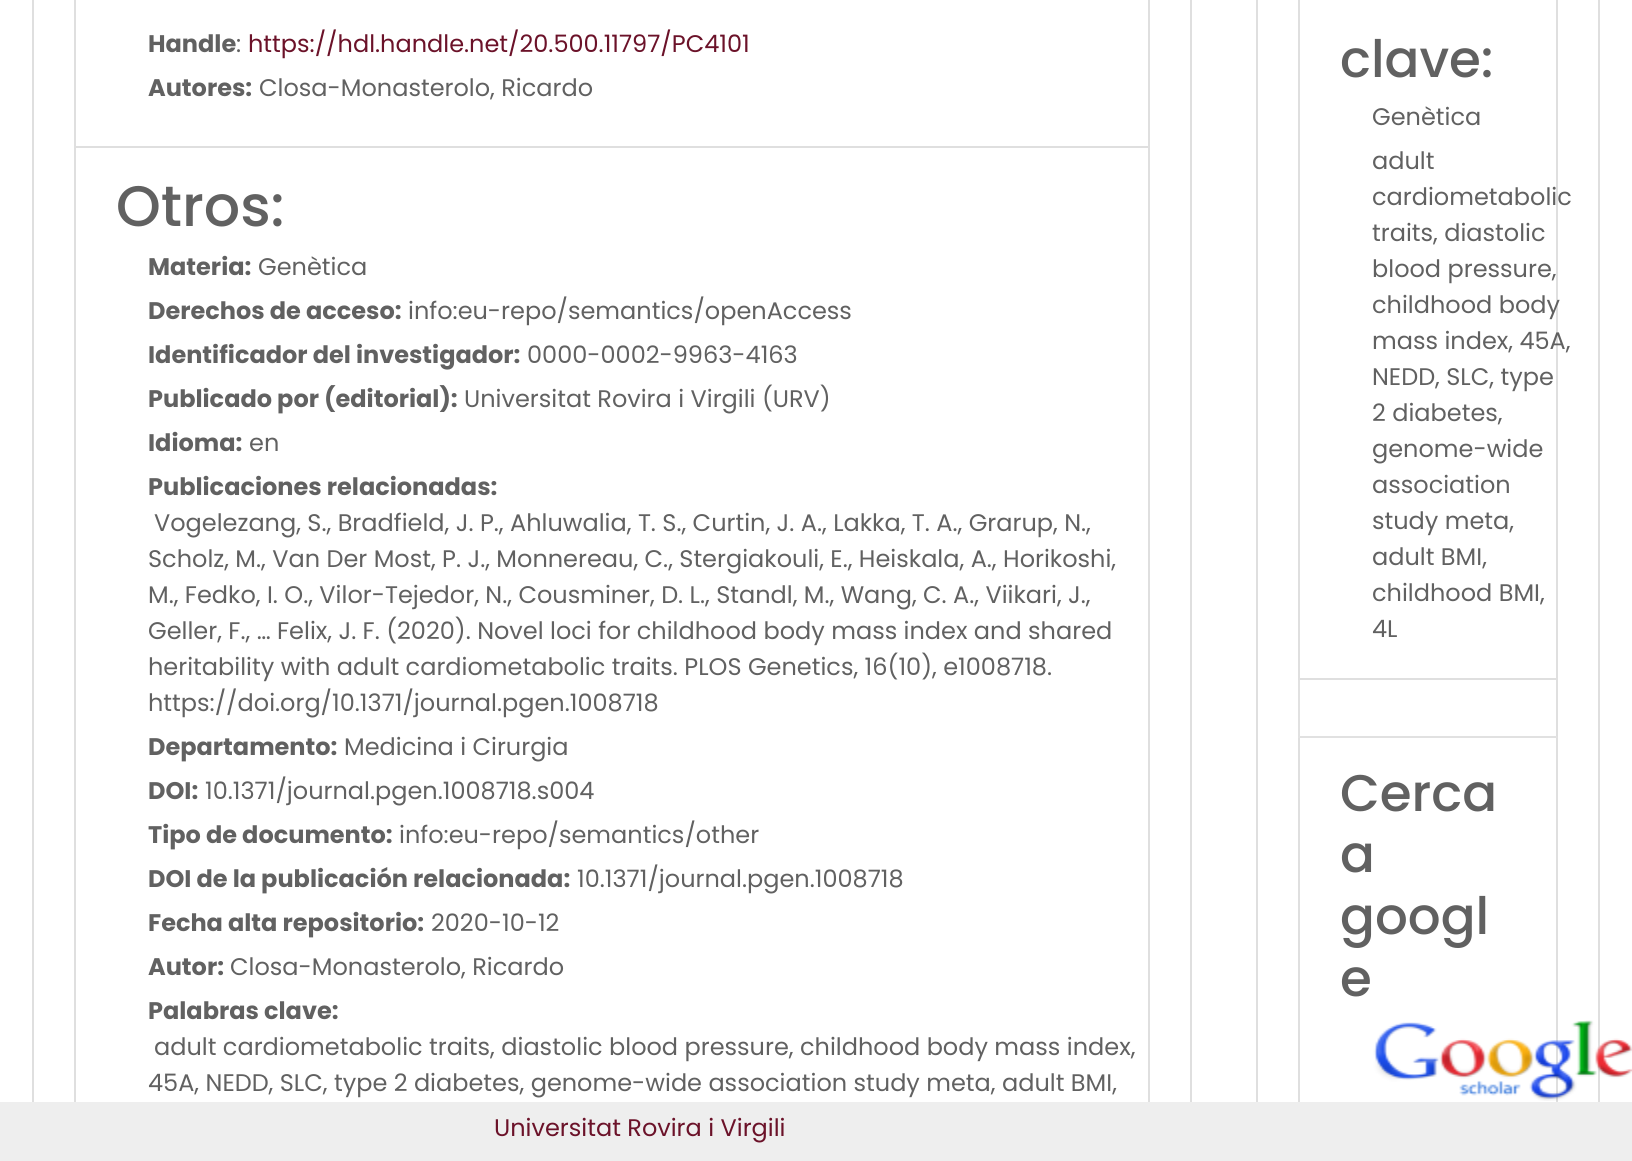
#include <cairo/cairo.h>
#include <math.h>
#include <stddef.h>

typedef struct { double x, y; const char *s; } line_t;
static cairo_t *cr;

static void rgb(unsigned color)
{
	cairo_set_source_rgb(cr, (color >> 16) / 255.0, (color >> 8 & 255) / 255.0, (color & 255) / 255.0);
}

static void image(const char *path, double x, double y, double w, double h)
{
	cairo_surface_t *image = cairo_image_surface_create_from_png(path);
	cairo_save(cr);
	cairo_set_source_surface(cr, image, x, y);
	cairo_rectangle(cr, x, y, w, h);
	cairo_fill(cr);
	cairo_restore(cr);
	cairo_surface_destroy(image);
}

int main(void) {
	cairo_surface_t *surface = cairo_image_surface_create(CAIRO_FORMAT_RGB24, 1632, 1161);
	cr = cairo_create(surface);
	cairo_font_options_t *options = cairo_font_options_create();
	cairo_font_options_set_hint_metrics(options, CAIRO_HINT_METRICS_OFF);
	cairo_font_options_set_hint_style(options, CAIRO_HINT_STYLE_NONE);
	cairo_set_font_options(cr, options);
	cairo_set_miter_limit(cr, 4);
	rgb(0xffffff);
	cairo_paint(cr);
	cairo_rectangle(cr, 33, -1, 1158, 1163);
	rgb(0xdfdfdf);
	cairo_stroke(cr);
	cairo_rectangle(cr, 75, -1, 1074, 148);
	cairo_stroke(cr);
	cairo_set_fill_rule(cr, CAIRO_FILL_RULE_EVEN_ODD);
	cairo_new_path(cr);
	cairo_move_to(cr, 74, 148);
	cairo_line_to(cr, 1150, 148);
	cairo_line_to(cr, 1150, 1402);
	cairo_curve_to(cr, 1150, 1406, 1146, 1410, 1142, 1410);
	cairo_line_to(cr, 82, 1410);
	cairo_curve_to(cr, 78, 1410, 74, 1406, 74, 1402);
	cairo_close_path(cr);
	cairo_move_to(cr, 76, 148);
	cairo_line_to(cr, 1148, 148);
	cairo_line_to(cr, 1148, 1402);
	cairo_curve_to(cr, 1148, 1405, 1145, 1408, 1142, 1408);
	cairo_line_to(cr, 82, 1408);
	cairo_curve_to(cr, 79, 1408, 76, 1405, 76, 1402);
	cairo_close_path(cr);
	cairo_fill(cr);
	cairo_rectangle(cr, 1257, -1, 342, 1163);
	cairo_stroke(cr);
	cairo_rectangle(cr, 1299, -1, 258, 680);
	cairo_stroke(cr);
	cairo_set_fill_rule(cr, CAIRO_FILL_RULE_WINDING);
	cairo_new_path(cr);
	cairo_move_to(cr, 1558, 680);
	cairo_line_to(cr, 1558, 738);
	cairo_line_to(cr, 1556, 736);
	cairo_line_to(cr, 1556, 680);
	cairo_close_path(cr);
	cairo_fill(cr);
	cairo_set_source_rgba(cr, 0, 0, 0, 0.12);
	cairo_new_path(cr);
	cairo_move_to(cr, 1558, 738);
	cairo_line_to(cr, 1298, 738);
	cairo_line_to(cr, 1300, 736);
	cairo_line_to(cr, 1556, 736);
	cairo_close_path(cr);
	cairo_fill(cr);
	cairo_new_path(cr);
	cairo_move_to(cr, 1298, 738);
	cairo_line_to(cr, 1298, 680);
	cairo_line_to(cr, 1300, 680);
	cairo_line_to(cr, 1300, 736);
	cairo_close_path(cr);
	cairo_fill(cr);
	rgb(0xdfdfdf);
	cairo_set_fill_rule(cr, CAIRO_FILL_RULE_EVEN_ODD);
	cairo_new_path(cr);
	cairo_move_to(cr, 1298, 738);
	cairo_line_to(cr, 1558, 738);
	cairo_line_to(cr, 1558, 1128);
	cairo_curve_to(cr, 1558, 1132, 1554, 1136, 1550, 1136);
	cairo_line_to(cr, 1306, 1136);
	cairo_curve_to(cr, 1302, 1136, 1298, 1132, 1298, 1128);
	cairo_close_path(cr);
	cairo_move_to(cr, 1300, 738);
	cairo_line_to(cr, 1556, 738);
	cairo_line_to(cr, 1556, 1128);
	cairo_curve_to(cr, 1556, 1131, 1553, 1134, 1550, 1134);
	cairo_line_to(cr, 1306, 1134);
	cairo_curve_to(cr, 1303, 1134, 1300, 1131, 1300, 1128);
	cairo_close_path(cr);
	cairo_fill(cr);
	image("img/1.png", 1373, 1020, 259, 81);
	rgb(0xeeeeee);
	cairo_rectangle(cr, 0, 1102, 1632, 59);
	cairo_fill(cr);
	cairo_select_font_face(cr, "Poppins", CAIRO_FONT_SLANT_NORMAL, CAIRO_FONT_WEIGHT_BOLD);
	cairo_set_font_size(cr, 24);
	rgb(0x616161);
	cairo_move_to(cr, 148, 52);
	cairo_show_text(cr, "Handle");
	cairo_select_font_face(cr, "Poppins", CAIRO_FONT_SLANT_NORMAL, CAIRO_FONT_WEIGHT_NORMAL);
	cairo_move_to(cr, 236, 52);
	cairo_show_text(cr, ":");
	rgb(0x6b1229);
	cairo_move_to(cr, 248, 52);
	cairo_show_text(cr, "https://hdl.handle.net/20.500.11797/PC4101");
	cairo_select_font_face(cr, "Poppins", CAIRO_FONT_SLANT_NORMAL, CAIRO_FONT_WEIGHT_BOLD);
	rgb(0x616161);
	cairo_move_to(cr, 148, 96);
	cairo_show_text(cr, "Autores:");
	cairo_select_font_face(cr, "Poppins", CAIRO_FONT_SLANT_NORMAL, CAIRO_FONT_WEIGHT_NORMAL);
	cairo_move_to(cr, 259, 96);
	cairo_show_text(cr, "Closa-Monasterolo, Ricardo");
	cairo_select_font_face(cr, "Poppins Medium", CAIRO_FONT_SLANT_NORMAL, CAIRO_FONT_WEIGHT_NORMAL);
	cairo_set_font_size(cr, 57);
	cairo_move_to(cr, 116, 226);
	cairo_show_text(cr, "Otros:");
	cairo_select_font_face(cr, "Poppins", CAIRO_FONT_SLANT_NORMAL, CAIRO_FONT_WEIGHT_BOLD);
	cairo_set_font_size(cr, 24);
	cairo_move_to(cr, 148, 275);
	cairo_show_text(cr, "Materia:");
	cairo_select_font_face(cr, "Poppins", CAIRO_FONT_SLANT_NORMAL, CAIRO_FONT_WEIGHT_NORMAL);
	cairo_move_to(cr, 258, 275);
	cairo_show_text(cr, "Genètica");
	cairo_select_font_face(cr, "Poppins", CAIRO_FONT_SLANT_NORMAL, CAIRO_FONT_WEIGHT_BOLD);
	cairo_move_to(cr, 148, 319);
	cairo_show_text(cr, "Derechos de acceso:");
	cairo_select_font_face(cr, "Poppins", CAIRO_FONT_SLANT_NORMAL, CAIRO_FONT_WEIGHT_NORMAL);
	cairo_move_to(cr, 408, 319);
	cairo_show_text(cr, "info:eu-repo/semantics/openAccess");
	cairo_select_font_face(cr, "Poppins", CAIRO_FONT_SLANT_NORMAL, CAIRO_FONT_WEIGHT_BOLD);
	cairo_move_to(cr, 148, 363);
	cairo_show_text(cr, "Identificador del investigador:");
	cairo_select_font_face(cr, "Poppins", CAIRO_FONT_SLANT_NORMAL, CAIRO_FONT_WEIGHT_NORMAL);
	cairo_move_to(cr, 527, 363);
	cairo_show_text(cr, "0000-0002-9963-4163");
	cairo_select_font_face(cr, "Poppins", CAIRO_FONT_SLANT_NORMAL, CAIRO_FONT_WEIGHT_BOLD);
	cairo_move_to(cr, 148, 407);
	cairo_show_text(cr, "Publicado por (editorial):");
	cairo_select_font_face(cr, "Poppins", CAIRO_FONT_SLANT_NORMAL, CAIRO_FONT_WEIGHT_NORMAL);
	cairo_move_to(cr, 464, 407);
	cairo_show_text(cr, "Universitat Rovira i Virgili (URV)");
	cairo_select_font_face(cr, "Poppins", CAIRO_FONT_SLANT_NORMAL, CAIRO_FONT_WEIGHT_BOLD);
	cairo_move_to(cr, 148, 451);
	cairo_show_text(cr, "Idioma:");
	cairo_select_font_face(cr, "Poppins", CAIRO_FONT_SLANT_NORMAL, CAIRO_FONT_WEIGHT_NORMAL);
	cairo_move_to(cr, 249, 451);
	cairo_show_text(cr, "en");
	cairo_select_font_face(cr, "Poppins", CAIRO_FONT_SLANT_NORMAL, CAIRO_FONT_WEIGHT_BOLD);
	cairo_move_to(cr, 148, 495);
	cairo_show_text(cr, "Publicaciones relacionadas:");
	cairo_select_font_face(cr, "Poppins", CAIRO_FONT_SLANT_NORMAL, CAIRO_FONT_WEIGHT_NORMAL);
	{
		static const line_t items[] = {
			{154, 531, "Vogelezang, S., Bradfield, J. P., Ahluwalia, T. S., Curtin, J. A., Lakka, T. A., Grarup, N.,"},
			{148, 567, "Scholz, M., Van Der Most, P. J., Monnereau, C., Stergiakouli, E., Heiskala, A., Horikoshi,"},
			{148, 603, "M., Fedko, I. O., Vilor-Tejedor, N., Cousminer, D. L., Standl, M., Wang, C. A., Viikari, J.,"},
			{148, 639, "Geller, F., … Felix, J. F. (2020). Novel loci for childhood body mass index and shared"},
			{148, 675, "heritability with adult cardiometabolic traits. PLOS Genetics, 16(10), e1008718."},
			{148, 711, "https://doi.org/10.1371/journal.pgen.1008718"},
		};
		for (size_t i = 0; i < sizeof items / sizeof *items; i++) {
			cairo_move_to(cr, items[i].x, items[i].y);
			cairo_show_text(cr, items[i].s);
		}
	}
	cairo_select_font_face(cr, "Poppins", CAIRO_FONT_SLANT_NORMAL, CAIRO_FONT_WEIGHT_BOLD);
	cairo_move_to(cr, 148, 755);
	cairo_show_text(cr, "Departamento:");
	cairo_select_font_face(cr, "Poppins", CAIRO_FONT_SLANT_NORMAL, CAIRO_FONT_WEIGHT_NORMAL);
	cairo_move_to(cr, 344, 755);
	cairo_show_text(cr, "Medicina i Cirurgia");
	cairo_select_font_face(cr, "Poppins", CAIRO_FONT_SLANT_NORMAL, CAIRO_FONT_WEIGHT_BOLD);
	cairo_move_to(cr, 148, 799);
	cairo_show_text(cr, "DOI:");
	cairo_select_font_face(cr, "Poppins", CAIRO_FONT_SLANT_NORMAL, CAIRO_FONT_WEIGHT_NORMAL);
	cairo_move_to(cr, 205, 799);
	cairo_show_text(cr, "10.1371/journal.pgen.1008718.s004");
	cairo_select_font_face(cr, "Poppins", CAIRO_FONT_SLANT_NORMAL, CAIRO_FONT_WEIGHT_BOLD);
	cairo_move_to(cr, 148, 843);
	cairo_show_text(cr, "Tipo de documento:");
	cairo_select_font_face(cr, "Poppins", CAIRO_FONT_SLANT_NORMAL, CAIRO_FONT_WEIGHT_NORMAL);
	cairo_move_to(cr, 399, 843);
	cairo_show_text(cr, "info:eu-repo/semantics/other");
	cairo_select_font_face(cr, "Poppins", CAIRO_FONT_SLANT_NORMAL, CAIRO_FONT_WEIGHT_BOLD);
	cairo_move_to(cr, 148, 887);
	cairo_show_text(cr, "DOI de la publicación relacionada:");
	cairo_select_font_face(cr, "Poppins", CAIRO_FONT_SLANT_NORMAL, CAIRO_FONT_WEIGHT_NORMAL);
	cairo_move_to(cr, 577, 887);
	cairo_show_text(cr, "10.1371/journal.pgen.1008718");
	cairo_select_font_face(cr, "Poppins", CAIRO_FONT_SLANT_NORMAL, CAIRO_FONT_WEIGHT_BOLD);
	cairo_move_to(cr, 148, 931);
	cairo_show_text(cr, "Fecha alta repositorio:");
	cairo_select_font_face(cr, "Poppins", CAIRO_FONT_SLANT_NORMAL, CAIRO_FONT_WEIGHT_NORMAL);
	cairo_move_to(cr, 431, 931);
	cairo_show_text(cr, "2020-10-12");
	cairo_select_font_face(cr, "Poppins", CAIRO_FONT_SLANT_NORMAL, CAIRO_FONT_WEIGHT_BOLD);
	cairo_move_to(cr, 148, 975);
	cairo_show_text(cr, "Autor:");
	cairo_select_font_face(cr, "Poppins", CAIRO_FONT_SLANT_NORMAL, CAIRO_FONT_WEIGHT_NORMAL);
	cairo_move_to(cr, 230, 975);
	cairo_show_text(cr, "Closa-Monasterolo, Ricardo");
	cairo_select_font_face(cr, "Poppins", CAIRO_FONT_SLANT_NORMAL, CAIRO_FONT_WEIGHT_BOLD);
	cairo_move_to(cr, 148, 1019);
	cairo_show_text(cr, "Palabras clave:");
	cairo_select_font_face(cr, "Poppins", CAIRO_FONT_SLANT_NORMAL, CAIRO_FONT_WEIGHT_NORMAL);
	cairo_move_to(cr, 154, 1055);
	cairo_show_text(cr, "adult cardiometabolic traits, diastolic blood pressure, childhood body mass index,");
	cairo_move_to(cr, 148, 1091);
	cairo_show_text(cr, "45A, NEDD, SLC, type 2 diabetes, genome-wide association study meta, adult BMI,");
	cairo_select_font_face(cr, "Poppins Medium", CAIRO_FONT_SLANT_NORMAL, CAIRO_FONT_WEIGHT_NORMAL);
	cairo_set_font_size(cr, 51.5);
	cairo_move_to(cr, 1340, 77);
	cairo_show_text(cr, "clave:");
	cairo_select_font_face(cr, "Poppins", CAIRO_FONT_SLANT_NORMAL, CAIRO_FONT_WEIGHT_NORMAL);
	cairo_set_font_size(cr, 24);
	{
		static const line_t items[] = {
			{1372, 125, "Genètica"},
			{1372, 169, "adult"},
			{1372, 205, "cardiometabolic"},
			{1372, 241, "traits, diastolic"},
			{1372, 277, "blood pressure,"},
			{1372, 313, "childhood body"},
			{1372, 349, "mass index, 45A,"},
			{1372, 385, "NEDD, SLC, type"},
			{1372, 421, "2 diabetes,"},
			{1372, 457, "genome-wide"},
			{1372, 493, "association"},
			{1372, 529, "study meta,"},
			{1372, 565, "adult BMI,"},
			{1372, 601, "childhood BMI,"},
			{1372, 637, "4L"},
		};
		for (size_t i = 0; i < sizeof items / sizeof *items; i++) {
			cairo_move_to(cr, items[i].x, items[i].y);
			cairo_show_text(cr, items[i].s);
		}
	}
	cairo_select_font_face(cr, "Poppins Medium", CAIRO_FONT_SLANT_NORMAL, CAIRO_FONT_WEIGHT_NORMAL);
	cairo_set_font_size(cr, 51.5);
	{
		static const line_t items[] = {
			{1340, 811, "Cerca"},
			{1340, 872, "a"},
			{1340, 934, "googl"},
			{1340, 996, "e"},
		};
		for (size_t i = 0; i < sizeof items / sizeof *items; i++) {
			cairo_move_to(cr, items[i].x, items[i].y);
			cairo_show_text(cr, items[i].s);
		}
	}
	cairo_select_font_face(cr, "Poppins", CAIRO_FONT_SLANT_NORMAL, CAIRO_FONT_WEIGHT_NORMAL);
	cairo_set_font_size(cr, 24);
	rgb(0x6b1229);
	cairo_move_to(cr, 494, 1136);
	cairo_show_text(cr, "Universitat Rovira i Virgili");
	cairo_surface_write_to_png(surface, "page.png");
	cairo_font_options_destroy(options);
	cairo_destroy(cr);
	cairo_surface_destroy(surface);
	return 0;
}
